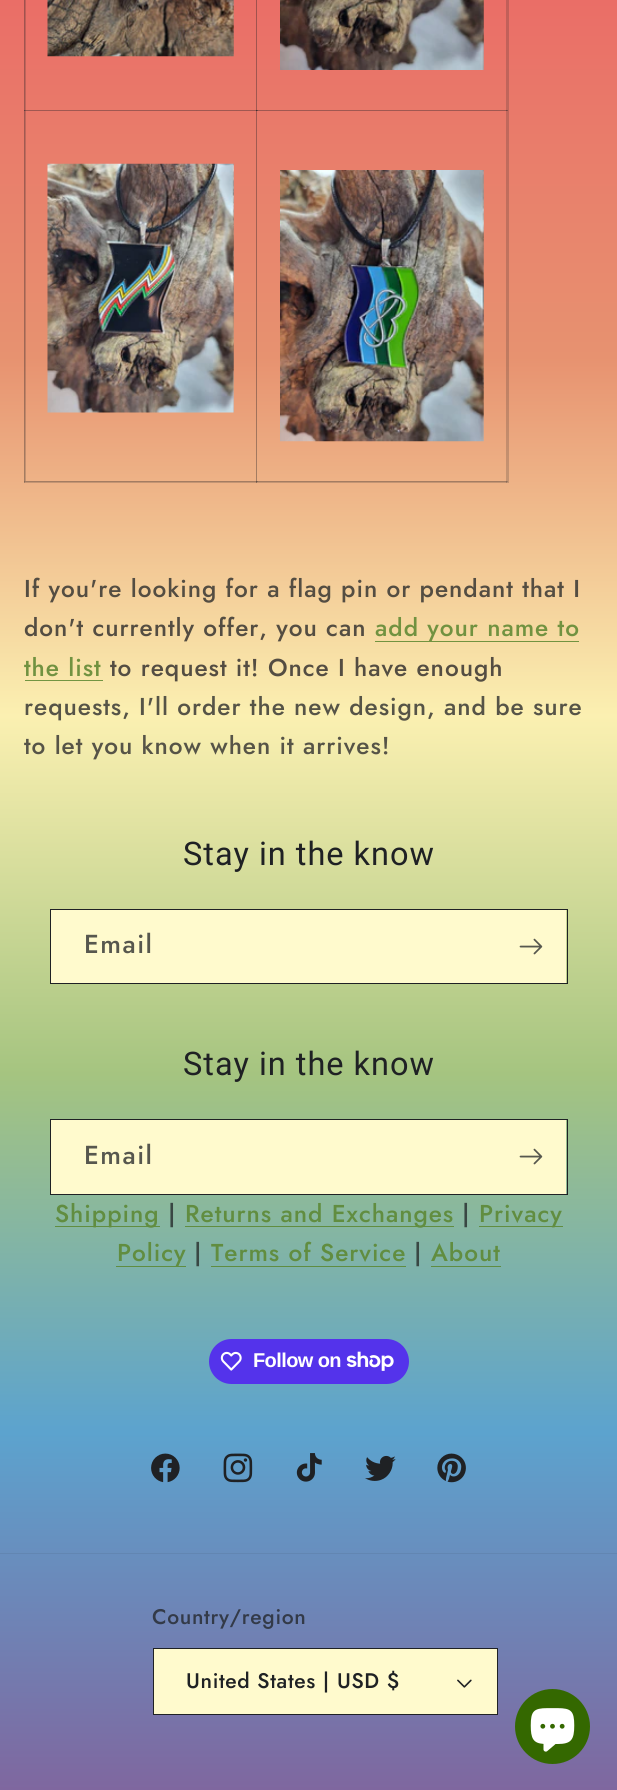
#include <cairo/cairo.h>
#include <math.h>
#include <stddef.h>

typedef struct { double x, y, w, h; unsigned color; } box_t;
static cairo_t *cr;

static void rgb(unsigned color)
{
	cairo_set_source_rgb(cr, (color >> 16) / 255.0, (color >> 8 & 255) / 255.0, (color & 255) / 255.0);
}

static void tracked(double x, double y, const char *s, double letter, double word)
{
	cairo_move_to(cr, x, y);
	while (*s) {
		char ch[5] = {0};
		int n = 0;
		do ch[n++] = *s++; while ((*s & 0xC0) == 0x80);
		cairo_show_text(cr, ch);
		cairo_rel_move_to(cr, letter + word * (*ch == ' '), 0);
	}
}

static void rrect(double x, double y, double w, double h, double r)
{
	cairo_new_sub_path(cr);
	cairo_arc(cr, x + w - r, y + h - r, r, 0, M_PI / 2);
	cairo_arc(cr, x + r, y + h - r, r, M_PI / 2, M_PI);
	cairo_arc(cr, x + r, y + r, r, M_PI, 1.5 * M_PI);
	cairo_arc(cr, x + w - r, y + r, r, 1.5 * M_PI, 2 * M_PI);
	cairo_close_path(cr);
}

static void image(const char *path, double x, double y, double w, double h)
{
	cairo_surface_t *image = cairo_image_surface_create_from_png(path);
	cairo_save(cr);
	cairo_set_source_surface(cr, image, x, y);
	cairo_rectangle(cr, x, y, w, h);
	cairo_fill(cr);
	cairo_restore(cr);
	cairo_surface_destroy(image);
}

int main(void) {
	cairo_surface_t *surface = cairo_image_surface_create(CAIRO_FORMAT_RGB24, 617, 1790);
	cr = cairo_create(surface);
	cairo_font_options_t *options = cairo_font_options_create();
	cairo_font_options_set_hint_metrics(options, CAIRO_HINT_METRICS_OFF);
	cairo_font_options_set_hint_style(options, CAIRO_HINT_STYLE_NONE);
	cairo_set_font_options(cr, options);
	cairo_set_miter_limit(cr, 4);
	cairo_pattern_t *gradient;
	rgb(0xffffff);
	cairo_paint(cr);
	gradient = cairo_pattern_create_linear(309, 0, 309, 1790);
	cairo_pattern_add_color_stop_rgba(gradient, 0, 0.918, 0.431, 0.404, 1);
	cairo_pattern_add_color_stop_rgba(gradient, 0.2, 0.906, 0.573, 0.439, 1);
	cairo_pattern_add_color_stop_rgba(gradient, 0.4, 0.984, 0.941, 0.694, 1);
	cairo_pattern_add_color_stop_rgba(gradient, 0.6, 0.647, 0.769, 0.502, 1);
	cairo_pattern_add_color_stop_rgba(gradient, 0.8, 0.361, 0.639, 0.808, 1);
	cairo_pattern_add_color_stop_rgba(gradient, 1, 0.498, 0.404, 0.624, 1);
	cairo_set_source(cr, gradient);
	cairo_pattern_destroy(gradient);
	cairo_rectangle(cr, 0, 0, 617, 1790);
	cairo_fill(cr);
	cairo_rectangle(cr, 25, -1, 483, 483);
	cairo_set_source_rgba(cr, 0.122, 0.129, 0.141, 0.2);
	cairo_stroke(cr);
	cairo_rectangle(cr, 256, 110, 252, 1);
	cairo_fill(cr);
	cairo_rectangle(cr, 506, 110, 1, 373);
	cairo_fill(cr);
	cairo_rectangle(cr, 506, 0, 1, 111);
	cairo_fill(cr);
	cairo_rectangle(cr, 256, 481, 252, 1);
	cairo_fill(cr);
	cairo_rectangle(cr, 256, 110, 1, 373);
	cairo_fill(cr);
	cairo_rectangle(cr, 24, 110, 234, 1);
	cairo_fill(cr);
	cairo_rectangle(cr, 256, 110, 1, 373);
	cairo_fill(cr);
	cairo_rectangle(cr, 256, 110, 252, 1);
	cairo_fill(cr);
	cairo_rectangle(cr, 256, 0, 1, 111);
	cairo_fill(cr);
	cairo_rectangle(cr, 256, 0, 1, 111);
	cairo_fill(cr);
	cairo_rectangle(cr, 24, 481, 234, 1);
	cairo_fill(cr);
	cairo_rectangle(cr, 24, 110, 1, 373);
	cairo_fill(cr);
	cairo_rectangle(cr, 24, 110, 234, 1);
	cairo_fill(cr);
	cairo_rectangle(cr, 24, 0, 1, 111);
	cairo_fill(cr);
	image("img/1.png", 47, 0, 187, 57);
	image("img/2.png", 280, 0, 204, 70);
	image("img/3.png", 47, 163, 187, 250);
	image("img/4.png", 280, 170, 204, 272);
	{
		static const box_t items[] = {
			{375, 641, 204, 1, 0x729340},
			{25, 680, 78, 1, 0x729542},
			{51, 910, 515, 73, 0xfffacd},
		};
		for (size_t i = 0; i < sizeof items / sizeof *items; i++) {
			rgb(items[i].color);
			cairo_rectangle(cr, items[i].x, items[i].y, items[i].w, items[i].h);
			cairo_fill(cr);
		}
	}
	cairo_rectangle(cr, 50.5, 909.5, 517, 74);
	rgb(0x1f2124);
	cairo_set_line_width(cr, 1);
	cairo_stroke(cr);
	image("img/5.png", 519, 938, 24, 17);
	rgb(0xfffacd);
	cairo_rectangle(cr, 51, 1120, 515, 74);
	cairo_fill(cr);
	cairo_rectangle(cr, 50.5, 1119.5, 517, 75);
	rgb(0x1f2124);
	cairo_stroke(cr);
	image("img/5.png", 519, 1148, 24, 17);
	{
		static const box_t items[] = {
			{55, 1226, 105, 1, 0x618d40},
			{185, 1226, 269, 1, 0x618d40},
			{479, 1226, 84, 1, 0x618d40},
			{116, 1266, 70, 1, 0x5f8d41},
			{211, 1266, 195, 1, 0x5f8d41},
			{431, 1266, 70, 1, 0x5f8d41},
		};
		for (size_t i = 0; i < sizeof items / sizeof *items; i++) {
			rgb(items[i].color);
			cairo_rectangle(cr, items[i].x, items[i].y, items[i].w, items[i].h);
			cairo_fill(cr);
		}
	}
	rgb(0x5433eb);
	rrect(209, 1339, 200, 45, 22.5);
	cairo_fill(cr);
	image("img/6.png", 220, 1351, 22, 20);
	image("img/7.png", 346, 1351, 48, 20);
	image("img/8.png", 151, 1453, 29, 30);
	image("img/9.png", 223, 1453, 30, 30);
	image("img/10.png", 296, 1453, 26, 29);
	image("img/11.png", 365, 1455, 31, 26);
	image("img/12.png", 437, 1453, 29, 30);
	rgb(0x6286b2);
	cairo_rectangle(cr, 0, 1553, 617, 1);
	cairo_fill(cr);
	rgb(0xfffacd);
	cairo_rectangle(cr, 154, 1649, 343, 65);
	cairo_fill(cr);
	image("img/13.png", 457, 1679, 15, 9);
	cairo_rectangle(cr, 153.5, 1648.5, 344, 66);
	rgb(0x1f2124);
	cairo_stroke(cr);
	rgb(0x346800);
	cairo_arc(cr, 552.5, 1726.5, 37.5, 0, 2 * M_PI);
	cairo_fill(cr);
	image("img/14.png", 530, 1708, 45, 44);
	cairo_select_font_face(cr, "Jost Medium", CAIRO_FONT_SLANT_NORMAL, CAIRO_FONT_WEIGHT_NORMAL);
	cairo_set_font_size(cr, 24.4);
	rgb(0x544d42);
	tracked(24, 597, "If you're looking for a flag pin or pendant that I", 0.98, 0);
	tracked(24, 636, "don't currently offer, you can", 0.98, 0);
	rgb(0x719240);
	tracked(375, 636, "add your name to", 0.98, 0);
	tracked(24, 676, "the list", 0.98, 0);
	rgb(0x544d42);
	tracked(110, 676, "to request it! Once I have enough", 0.98, 0);
	rgb(0x565447);
	tracked(24, 715, "requests, I'll order the new design, and be sure", 0.98, 0);
	tracked(24, 754, "to let you know when it arrives!", 0.98, 0);
	cairo_select_font_face(cr, "Roboto", CAIRO_FONT_SLANT_NORMAL, CAIRO_FONT_WEIGHT_NORMAL);
	cairo_set_font_size(cr, 32.5);
	rgb(0x1f2124);
	tracked(183, 865, "Stay in the know", 0.98, 0);
	cairo_select_font_face(cr, "Jost Medium", CAIRO_FONT_SLANT_NORMAL, CAIRO_FONT_WEIGHT_NORMAL);
	cairo_set_font_size(cr, 26);
	rgb(0x57574e);
	tracked(84, 953, "Email", 1.5, 0);
	cairo_select_font_face(cr, "Roboto", CAIRO_FONT_SLANT_NORMAL, CAIRO_FONT_WEIGHT_NORMAL);
	cairo_set_font_size(cr, 32.5);
	rgb(0x1f2124);
	tracked(183, 1075, "Stay in the know", 0.98, 0);
	cairo_select_font_face(cr, "Jost Medium", CAIRO_FONT_SLANT_NORMAL, CAIRO_FONT_WEIGHT_NORMAL);
	cairo_set_font_size(cr, 26);
	rgb(0x57574e);
	tracked(84, 1164, "Email", 1.5, 0);
	cairo_set_font_size(cr, 24.4);
	rgb(0x618d40);
	tracked(55, 1222, "Shipping", 0.98, 0);
	rgb(0x394743);
	tracked(168, 1222, "|", 0.98, 0);
	rgb(0x618d40);
	tracked(185, 1222, "Returns and Exchanges", 0.98, 0);
	rgb(0x394743);
	tracked(462, 1222, "|", 0.98, 0);
	rgb(0x618d40);
	tracked(479, 1222, "Privacy", 0.98, 0);
	tracked(117, 1261, "Policy", 0.98, 0);
	rgb(0x394743);
	tracked(194, 1261, "|", 0.98, 0);
	rgb(0x618d40);
	tracked(211, 1261, "Terms of Service", 0.98, 0);
	rgb(0x394743);
	tracked(414, 1261, "|", 0.98, 0);
	rgb(0x618d40);
	tracked(431, 1261, "About", 0.98, 0);
	cairo_select_font_face(cr, "Liberation Sans", CAIRO_FONT_SLANT_NORMAL, CAIRO_FONT_WEIGHT_BOLD);
	cairo_set_font_size(cr, 20);
	rgb(0xffffff);
	tracked(253, 1367, "Follow on", -0.6, 0);
	cairo_select_font_face(cr, "Jost Medium", CAIRO_FONT_SLANT_NORMAL, CAIRO_FONT_WEIGHT_NORMAL);
	cairo_set_font_size(cr, 21.1);
	rgb(0x333a48);
	tracked(152, 1624, "Country/region", 0.65, 0);
	rgb(0x1f2124);
	tracked(186, 1688, "United States | USD $", 0.65, 0);
	cairo_surface_write_to_png(surface, "page.png");
	cairo_font_options_destroy(options);
	cairo_destroy(cr);
	cairo_surface_destroy(surface);
	return 0;
}
